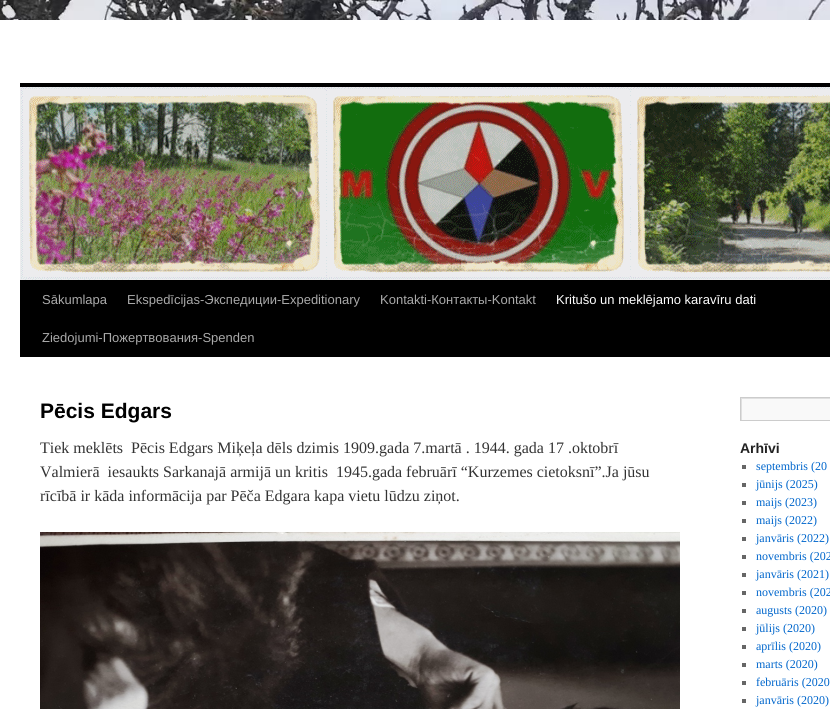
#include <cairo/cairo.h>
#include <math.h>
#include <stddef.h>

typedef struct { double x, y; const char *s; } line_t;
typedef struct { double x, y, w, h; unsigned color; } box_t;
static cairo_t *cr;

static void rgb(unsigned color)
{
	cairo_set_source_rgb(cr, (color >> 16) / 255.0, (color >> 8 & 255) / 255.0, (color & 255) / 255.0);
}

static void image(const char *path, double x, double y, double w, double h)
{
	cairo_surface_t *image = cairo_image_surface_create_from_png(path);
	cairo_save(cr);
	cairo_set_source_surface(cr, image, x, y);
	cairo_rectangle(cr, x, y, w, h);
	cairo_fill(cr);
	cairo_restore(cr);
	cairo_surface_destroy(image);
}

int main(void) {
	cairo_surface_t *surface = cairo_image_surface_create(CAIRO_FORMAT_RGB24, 830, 709);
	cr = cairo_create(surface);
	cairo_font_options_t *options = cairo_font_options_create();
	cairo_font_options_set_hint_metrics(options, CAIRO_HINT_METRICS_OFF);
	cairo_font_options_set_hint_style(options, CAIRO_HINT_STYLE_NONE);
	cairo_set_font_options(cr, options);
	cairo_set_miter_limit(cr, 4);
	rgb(0xffffff);
	cairo_paint(cr);
	image("img/1.png", 0, 0, 830, 20);
	rgb(0x000000);
	cairo_rectangle(cr, 20, 83, 810, 4);
	cairo_fill(cr);
	cairo_rectangle(cr, 20, 280, 810, 77);
	cairo_fill(cr);
	image("img/2.png", 20, 87, 810, 193);
	image("img/3.png", 40, 532, 640, 177);
	rgb(0xf9f9f9);
	cairo_rectangle(cr, 742, 399, 88, 21);
	cairo_fill(cr);
	cairo_save(cr);
	cairo_rectangle(cr, 741, 398, 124, 22);
	cairo_clip(cr);
	rgb(0xe0e0e0);
	cairo_set_fill_rule(cr, CAIRO_FILL_RULE_EVEN_ODD);
	cairo_new_path(cr);
	cairo_move_to(cr, 642, 299);
	cairo_line_to(cr, 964, 299);
	cairo_line_to(cr, 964, 519);
	cairo_line_to(cr, 642, 519);
	cairo_close_path(cr);
	cairo_move_to(cr, 742, 399);
	cairo_line_to(cr, 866, 399);
	cairo_line_to(cr, 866, 421);
	cairo_line_to(cr, 742, 421);
	cairo_close_path(cr);
	cairo_fill(cr);
	cairo_restore(cr);
	cairo_rectangle(cr, 740.5, 397.5, 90, 23);
	rgb(0xcccccc);
	cairo_set_line_width(cr, 1);
	cairo_stroke(cr);
	{
		static const box_t items[] = {
			{742, 465, 4, 4, 0x666666},
			{742, 483, 4, 4, 0x666666},
			{742, 501, 4, 4, 0x666666},
			{742, 519, 4, 4, 0x666666},
			{742, 537, 4, 4, 0x666666},
			{742, 555, 4, 4, 0x666666},
			{742, 573, 4, 4, 0x666666},
			{742, 591, 4, 4, 0x666666},
			{742, 609, 4, 4, 0x666666},
			{742, 627, 4, 4, 0x666666},
			{742, 645, 4, 4, 0x666666},
			{742, 663, 4, 4, 0x666666},
			{742, 681, 4, 4, 0x666666},
			{742, 699, 4, 4, 0x666666},
		};
		for (size_t i = 0; i < sizeof items / sizeof *items; i++) {
			rgb(items[i].color);
			cairo_rectangle(cr, items[i].x, items[i].y, items[i].w, items[i].h);
			cairo_fill(cr);
		}
	}
	cairo_select_font_face(cr, "Liberation Sans", CAIRO_FONT_SLANT_NORMAL, CAIRO_FONT_WEIGHT_NORMAL);
	cairo_set_font_size(cr, 13);
	rgb(0xaaaaaa);
	{
		static const line_t items[] = {
			{42, 304, "Sākumlapa"},
			{127, 304, "Ekspedīcijas-Экспедиции-Expeditionary"},
			{380, 304, "Kontakti-Контакты-Kontakt"},
		};
		for (size_t i = 0; i < sizeof items / sizeof *items; i++) {
			cairo_move_to(cr, items[i].x, items[i].y);
			cairo_show_text(cr, items[i].s);
		}
	}
	rgb(0xffffff);
	cairo_move_to(cr, 556, 304);
	cairo_show_text(cr, "Kritušo un meklējamo karavīru dati");
	rgb(0xaaaaaa);
	cairo_move_to(cr, 42, 342);
	cairo_show_text(cr, "Ziedojumi-Пожертвования-Spenden");
	cairo_select_font_face(cr, "Liberation Sans", CAIRO_FONT_SLANT_NORMAL, CAIRO_FONT_WEIGHT_BOLD);
	cairo_set_font_size(cr, 21);
	rgb(0x000000);
	cairo_move_to(cr, 40, 418);
	cairo_show_text(cr, "Pēcis Edgars");
	cairo_select_font_face(cr, "Liberation Serif", CAIRO_FONT_SLANT_NORMAL, CAIRO_FONT_WEIGHT_NORMAL);
	cairo_set_font_size(cr, 16);
	rgb(0x333333);
	{
		static const line_t items[] = {
			{40, 453, "Tiek meklēts  Pēcis Edgars Miķeļa dēls dzimis 1909.gada 7.martā . 1944. gada 17 .oktobrī"},
			{40, 477, "Valmierā  iesaukts Sarkanajā armijā un kritis  1945.gada februārī “Kurzemes cietoksnī”.Ja jūsu"},
			{40, 501, "rīcībā ir kāda informācija par Pēča Edgara kapa vietu lūdzu ziņot."},
		};
		for (size_t i = 0; i < sizeof items / sizeof *items; i++) {
			cairo_move_to(cr, items[i].x, items[i].y);
			cairo_show_text(cr, items[i].s);
		}
	}
	cairo_select_font_face(cr, "Liberation Sans", CAIRO_FONT_SLANT_NORMAL, CAIRO_FONT_WEIGHT_BOLD);
	cairo_set_font_size(cr, 14);
	rgb(0x222222);
	cairo_move_to(cr, 740, 453);
	cairo_show_text(cr, "Arhīvi");
	cairo_select_font_face(cr, "Liberation Serif", CAIRO_FONT_SLANT_NORMAL, CAIRO_FONT_WEIGHT_NORMAL);
	cairo_set_font_size(cr, 12);
	rgb(0x0066cc);
	{
		static const line_t items[] = {
			{756, 470, "septembris (20"},
			{756, 488, "jūnijs (2025)"},
			{756, 506, "maijs (2023)"},
			{756, 524, "maijs (2022)"},
			{756, 542, "janvāris (2022)"},
			{756, 560, "novembris (202"},
			{756, 578, "janvāris (2021)"},
			{756, 596, "novembris (202"},
			{756, 614, "augusts (2020)"},
			{756, 632, "jūlijs (2020)"},
			{756, 650, "aprīlis (2020)"},
			{756, 668, "marts (2020)"},
			{756, 686, "februāris (2020"},
			{756, 704, "janvāris (2020)"},
		};
		for (size_t i = 0; i < sizeof items / sizeof *items; i++) {
			cairo_move_to(cr, items[i].x, items[i].y);
			cairo_show_text(cr, items[i].s);
		}
	}
	cairo_surface_write_to_png(surface, "page.png");
	cairo_font_options_destroy(options);
	cairo_destroy(cr);
	cairo_surface_destroy(surface);
	return 0;
}
